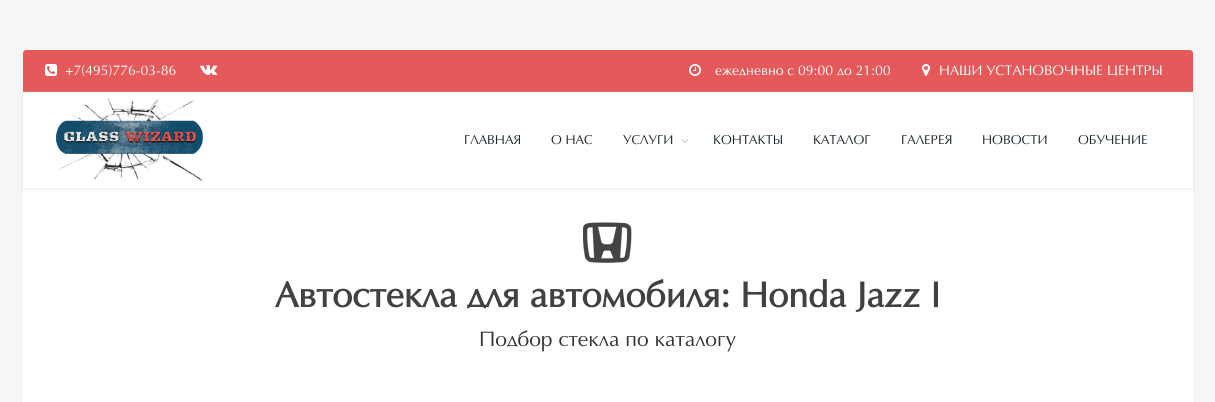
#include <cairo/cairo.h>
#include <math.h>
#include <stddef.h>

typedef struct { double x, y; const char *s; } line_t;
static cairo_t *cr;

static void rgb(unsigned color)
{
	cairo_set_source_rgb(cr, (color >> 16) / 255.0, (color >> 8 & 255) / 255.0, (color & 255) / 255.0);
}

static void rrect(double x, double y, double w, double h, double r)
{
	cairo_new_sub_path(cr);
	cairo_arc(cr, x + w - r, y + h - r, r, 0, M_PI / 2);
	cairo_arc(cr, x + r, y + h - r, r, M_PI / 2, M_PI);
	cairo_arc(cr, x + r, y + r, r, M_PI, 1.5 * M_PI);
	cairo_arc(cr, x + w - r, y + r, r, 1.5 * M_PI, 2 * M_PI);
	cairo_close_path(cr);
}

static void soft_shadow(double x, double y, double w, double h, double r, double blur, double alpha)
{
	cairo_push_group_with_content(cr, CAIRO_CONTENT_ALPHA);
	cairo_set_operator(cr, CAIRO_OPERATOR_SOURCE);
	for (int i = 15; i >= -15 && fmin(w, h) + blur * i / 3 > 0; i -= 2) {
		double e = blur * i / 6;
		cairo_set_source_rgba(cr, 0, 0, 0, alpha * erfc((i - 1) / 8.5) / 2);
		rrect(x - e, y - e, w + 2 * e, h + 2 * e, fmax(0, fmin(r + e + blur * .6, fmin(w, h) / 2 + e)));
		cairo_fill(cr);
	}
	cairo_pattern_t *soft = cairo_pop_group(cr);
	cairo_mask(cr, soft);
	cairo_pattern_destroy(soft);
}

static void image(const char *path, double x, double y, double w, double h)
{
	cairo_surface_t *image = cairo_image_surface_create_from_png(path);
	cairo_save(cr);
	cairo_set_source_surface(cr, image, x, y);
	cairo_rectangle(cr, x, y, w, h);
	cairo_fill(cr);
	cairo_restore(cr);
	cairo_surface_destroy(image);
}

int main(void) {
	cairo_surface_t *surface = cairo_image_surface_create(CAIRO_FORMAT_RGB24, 1215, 402);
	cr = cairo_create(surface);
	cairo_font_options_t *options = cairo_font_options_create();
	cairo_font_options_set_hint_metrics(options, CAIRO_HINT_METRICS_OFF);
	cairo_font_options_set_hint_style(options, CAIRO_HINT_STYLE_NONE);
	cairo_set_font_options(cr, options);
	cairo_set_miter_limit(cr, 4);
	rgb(0xf6f6f6);
	cairo_paint(cr);
	rgb(0xe45a5a);
	cairo_new_path(cr);
	cairo_move_to(cr, 26, 50);
	cairo_line_to(cr, 1190, 50);
	cairo_curve_to(cr, 1191.5, 50, 1193, 51.5, 1193, 53);
	cairo_line_to(cr, 1193, 92);
	cairo_line_to(cr, 23, 92);
	cairo_line_to(cr, 23, 53);
	cairo_curve_to(cr, 23, 51.5, 24.5, 50, 26, 50);
	cairo_close_path(cr);
	cairo_fill(cr);
	rgb(0xe76b6b);
	cairo_rectangle(cr, 23, 91, 1170, 1);
	cairo_fill(cr);
	image("img/1.png", 45, 64, 12, 12);
	image("img/2.png", 200, 65, 18, 10);
	image("img/3.png", 689, 64, 12, 12);
	image("img/4.png", 922, 64, 8, 12);
	rgb(0xffffff);
	cairo_rectangle(cr, 23, 189, 1170, 213);
	cairo_fill(cr);
	rgb(0x000000);
	soft_shadow(23, 92, 1170, 97, 0, 1, 0.1);
	rgb(0xffffff);
	cairo_rectangle(cr, 23, 92, 1170, 96);
	cairo_fill(cr);
	rgb(0xf2f2f2);
	cairo_rectangle(cr, 23, 188, 1170, 1);
	cairo_fill(cr);
	image("img/5.png", 55, 98, 149, 83);
	image("img/6.png", 681, 139, 7, 4);
	image("img/7.png", 583, 222, 49, 41);
	cairo_select_font_face(cr, "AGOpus", CAIRO_FONT_SLANT_NORMAL, CAIRO_FONT_WEIGHT_NORMAL);
	cairo_set_font_size(cr, 14);
	rgb(0xffffff);
	{
		static const line_t items[] = {
			{65, 75, "+7(495)776-03-86"},
			{715, 75, "ежедневно с 09:00 до 21:00"},
			{939, 75, "НАШИ УСТАНОВОЧНЫЕ ЦЕНТРЫ"},
		};
		for (size_t i = 0; i < sizeof items / sizeof *items; i++) {
			cairo_move_to(cr, items[i].x, items[i].y);
			cairo_show_text(cr, items[i].s);
		}
	}
	cairo_set_font_size(cr, 13);
	rgb(0x1f262d);
	{
		static const line_t items[] = {
			{464, 144, "ГЛАВНАЯ"},
			{551, 144, "О НАС"},
			{623, 144, "УСЛУГИ"},
			{713, 144, "КОНТАКТЫ"},
			{813, 144, "КАТАЛОГ"},
			{901, 144, "ГАЛЕРЕЯ"},
			{982, 144, "НОВОСТИ"},
			{1078, 144, "ОБУЧЕНИЕ"},
		};
		for (size_t i = 0; i < sizeof items / sizeof *items; i++) {
			cairo_move_to(cr, items[i].x, items[i].y);
			cairo_show_text(cr, items[i].s);
		}
	}
	cairo_select_font_face(cr, "AGOpus", CAIRO_FONT_SLANT_NORMAL, CAIRO_FONT_WEIGHT_BOLD);
	cairo_set_font_size(cr, 36);
	rgb(0x414141);
	cairo_move_to(cr, 275, 307);
	cairo_show_text(cr, "Автостекла для автомобиля: Honda Jazz I");
	cairo_select_font_face(cr, "AGOpus", CAIRO_FONT_SLANT_NORMAL, CAIRO_FONT_WEIGHT_NORMAL);
	cairo_set_font_size(cr, 21);
	rgb(0x333333);
	cairo_move_to(cr, 479, 346);
	cairo_show_text(cr, "Подбор стекла по каталогу");
	cairo_surface_write_to_png(surface, "page.png");
	cairo_font_options_destroy(options);
	cairo_destroy(cr);
	cairo_surface_destroy(surface);
	return 0;
}
